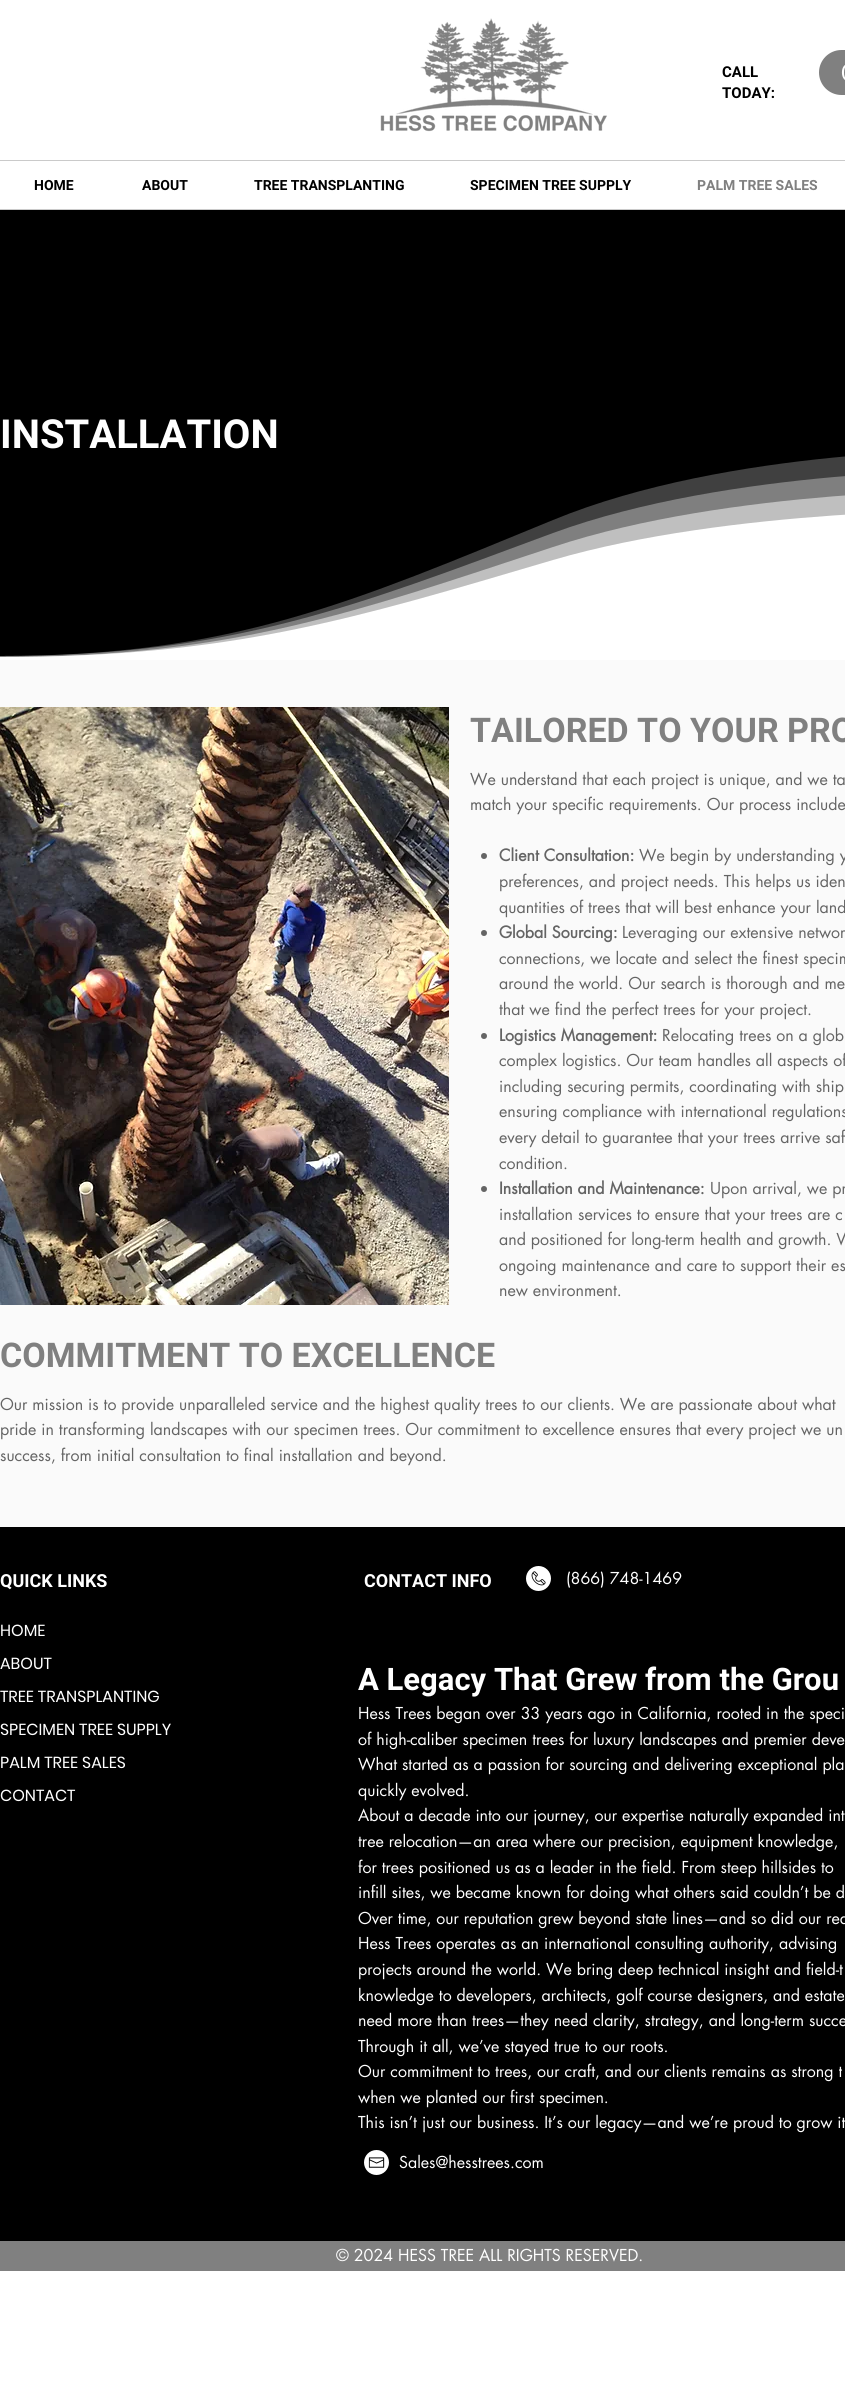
#include <cairo/cairo.h>
#include <math.h>
#include <stddef.h>

typedef struct { double x, y; const char *s; } line_t;
typedef struct { double x, y, w, h; unsigned color; } box_t;
static cairo_t *cr;

static void rgb(unsigned color)
{
	cairo_set_source_rgb(cr, (color >> 16) / 255.0, (color >> 8 & 255) / 255.0, (color & 255) / 255.0);
}

static void rrect(double x, double y, double w, double h, double r)
{
	cairo_new_sub_path(cr);
	cairo_arc(cr, x + w - r, y + h - r, r, 0, M_PI / 2);
	cairo_arc(cr, x + r, y + h - r, r, M_PI / 2, M_PI);
	cairo_arc(cr, x + r, y + r, r, M_PI, 1.5 * M_PI);
	cairo_arc(cr, x + w - r, y + r, r, 1.5 * M_PI, 2 * M_PI);
	cairo_close_path(cr);
}

static void image(const char *path, double x, double y, double w, double h)
{
	cairo_surface_t *image = cairo_image_surface_create_from_png(path);
	cairo_save(cr);
	cairo_set_source_surface(cr, image, x, y);
	cairo_rectangle(cr, x, y, w, h);
	cairo_fill(cr);
	cairo_restore(cr);
	cairo_surface_destroy(image);
}

int main(void) {
	cairo_surface_t *surface = cairo_image_surface_create(CAIRO_FORMAT_RGB24, 845, 2408);
	cr = cairo_create(surface);
	cairo_font_options_t *options = cairo_font_options_create();
	cairo_font_options_set_hint_metrics(options, CAIRO_HINT_METRICS_OFF);
	cairo_font_options_set_hint_style(options, CAIRO_HINT_STYLE_NONE);
	cairo_set_font_options(cr, options);
	cairo_set_miter_limit(cr, 4);
	rgb(0xffffff);
	cairo_paint(cr);
	image("img/1.png", 380, 18, 227, 114);
	rgb(0x808080);
	rrect(819, 50, 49, 45, 22.5);
	cairo_fill(cr);
	{
		static const box_t items[] = {
			{0, 160, 845, 1, 0xcacaca},
			{0, 209, 845, 1, 0xcacaca},
			{0, 210, 845, 446, 0x000000},
		};
		for (size_t i = 0; i < sizeof items / sizeof *items; i++) {
			rgb(items[i].color);
			cairo_rectangle(cr, items[i].x, items[i].y, items[i].w, items[i].h);
			cairo_fill(cr);
		}
	}
	rgb(0x404040);
	cairo_new_path(cr);
	cairo_move_to(cr, 0, 660);
	cairo_line_to(cr, 0, 656);
	cairo_curve_to(cr, 232, 656, 353, 602, 553, 520);
	cairo_curve_to(cr, 730, 447, 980, 450, 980, 450);
	cairo_line_to(cr, 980, 660);
	cairo_close_path(cr);
	cairo_fill(cr);
	cairo_set_source_rgba(cr, 1, 1, 1, 0.33);
	cairo_new_path(cr);
	cairo_move_to(cr, 0, 660);
	cairo_line_to(cr, 0, 656);
	cairo_curve_to(cr, 232, 656, 353, 607, 553, 533);
	cairo_curve_to(cr, 730, 468, 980, 470, 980, 470);
	cairo_line_to(cr, 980, 660);
	cairo_close_path(cr);
	cairo_fill(cr);
	rgb(0xbfbfbf);
	cairo_new_path(cr);
	cairo_move_to(cr, 0, 660);
	cairo_line_to(cr, 0, 657);
	cairo_curve_to(cr, 232, 657, 353, 613, 553, 547);
	cairo_curve_to(cr, 730, 488, 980, 490, 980, 490);
	cairo_line_to(cr, 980, 660);
	cairo_close_path(cr);
	cairo_fill(cr);
	rgb(0xffffff);
	cairo_new_path(cr);
	cairo_move_to(cr, 0, 660);
	cairo_line_to(cr, 0, 657);
	cairo_curve_to(cr, 232, 657, 353, 619, 553, 560);
	cairo_curve_to(cr, 730, 508, 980, 510, 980, 510);
	cairo_line_to(cr, 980, 660);
	cairo_close_path(cr);
	cairo_fill(cr);
	rgb(0xfafafa);
	cairo_rectangle(cr, 0, 660, 845, 867);
	cairo_fill(cr);
	image("img/2.png", 0, 707, 449, 598);
	rgb(0x646464);
	cairo_arc(cr, 484, 856, 3, 0, 2 * M_PI);
	cairo_fill(cr);
	cairo_arc(cr, 484, 933, 3, 0, 2 * M_PI);
	cairo_fill(cr);
	cairo_arc(cr, 484, 1036, 3, 0, 2 * M_PI);
	cairo_fill(cr);
	cairo_arc(cr, 484, 1189, 3, 0, 2 * M_PI);
	cairo_fill(cr);
	rgb(0x000000);
	cairo_rectangle(cr, 0, 1527, 845, 714);
	cairo_fill(cr);
	image("img/3.png", 526, 1566, 25, 25);
	image("img/4.png", 364, 2150, 25, 25);
	rgb(0x808080);
	cairo_rectangle(cr, 0, 2241, 845, 30);
	cairo_fill(cr);
	cairo_select_font_face(cr, "Roboto", CAIRO_FONT_SLANT_NORMAL, CAIRO_FONT_WEIGHT_BOLD);
	cairo_set_font_size(cr, 15);
	rgb(0x000000);
	cairo_move_to(cr, 722, 77);
	cairo_show_text(cr, "CALL");
	cairo_move_to(cr, 722, 98);
	cairo_show_text(cr, "TODAY:");
	cairo_select_font_face(cr, "Roboto Black", CAIRO_FONT_SLANT_NORMAL, CAIRO_FONT_WEIGHT_NORMAL);
	cairo_set_font_size(cr, 16);
	rgb(0xffffff);
	cairo_move_to(cr, 841, 77);
	cairo_show_text(cr, "(");
	cairo_select_font_face(cr, "Roboto", CAIRO_FONT_SLANT_NORMAL, CAIRO_FONT_WEIGHT_BOLD);
	cairo_set_font_size(cr, 14);
	rgb(0x000000);
	{
		static const line_t items[] = {
			{34, 190, "HOME"},
			{142, 190, "ABOUT"},
			{254, 190, "TREE TRANSPLANTING"},
			{470, 190, "SPECIMEN TREE SUPPLY"},
		};
		for (size_t i = 0; i < sizeof items / sizeof *items; i++) {
			cairo_move_to(cr, items[i].x, items[i].y);
			cairo_show_text(cr, items[i].s);
		}
	}
	rgb(0x808080);
	cairo_move_to(cr, 697, 190);
	cairo_show_text(cr, "PALM TREE SALES");
	cairo_set_font_size(cr, 40);
	rgb(0xffffff);
	cairo_move_to(cr, 0, 448);
	cairo_show_text(cr, "INSTALLATION");
	cairo_set_font_size(cr, 34);
	rgb(0x808080);
	cairo_move_to(cr, 470, 742);
	cairo_show_text(cr, "TAILORED TO YOUR PRO");
	cairo_select_font_face(cr, "futura", CAIRO_FONT_SLANT_NORMAL, CAIRO_FONT_WEIGHT_NORMAL);
	cairo_set_font_size(cr, 16);
	rgb(0x646464);
	cairo_move_to(cr, 470, 785);
	cairo_show_text(cr, "We understand that each project is unique, and we ta");
	cairo_move_to(cr, 470, 810);
	cairo_show_text(cr, "match your specific requirements. Our process include");
	cairo_select_font_face(cr, "futura", CAIRO_FONT_SLANT_NORMAL, CAIRO_FONT_WEIGHT_BOLD);
	cairo_move_to(cr, 499, 861);
	cairo_show_text(cr, "Client Consultation:");
	cairo_select_font_face(cr, "futura", CAIRO_FONT_SLANT_NORMAL, CAIRO_FONT_WEIGHT_NORMAL);
	{
		static const line_t items[] = {
			{639, 861, "We begin by understanding y"},
			{499, 887, "preferences, and project needs. This helps us iden"},
			{499, 913, "quantities of trees that will best enhance your land"},
		};
		for (size_t i = 0; i < sizeof items / sizeof *items; i++) {
			cairo_move_to(cr, items[i].x, items[i].y);
			cairo_show_text(cr, items[i].s);
		}
	}
	cairo_select_font_face(cr, "futura", CAIRO_FONT_SLANT_NORMAL, CAIRO_FONT_WEIGHT_BOLD);
	cairo_move_to(cr, 499, 938);
	cairo_show_text(cr, "Global Sourcing:");
	cairo_select_font_face(cr, "futura", CAIRO_FONT_SLANT_NORMAL, CAIRO_FONT_WEIGHT_NORMAL);
	{
		static const line_t items[] = {
			{622, 938, "Leveraging our extensive networ"},
			{499, 964, "connections, we locate and select the finest specim"},
			{499, 989, "around the world. Our search is thorough and me"},
			{499, 1015, "that we find the perfect trees for your project."},
		};
		for (size_t i = 0; i < sizeof items / sizeof *items; i++) {
			cairo_move_to(cr, items[i].x, items[i].y);
			cairo_show_text(cr, items[i].s);
		}
	}
	cairo_select_font_face(cr, "futura", CAIRO_FONT_SLANT_NORMAL, CAIRO_FONT_WEIGHT_BOLD);
	cairo_move_to(cr, 499, 1041);
	cairo_show_text(cr, "Logistics Management:");
	cairo_select_font_face(cr, "futura", CAIRO_FONT_SLANT_NORMAL, CAIRO_FONT_WEIGHT_NORMAL);
	{
		static const line_t items[] = {
			{662, 1041, "Relocating trees on a glob"},
			{499, 1066, "complex logistics. Our team handles all aspects of"},
			{499, 1092, "including securing permits, coordinating with ship"},
			{499, 1117, "ensuring compliance with international regulations"},
			{499, 1143, "every detail to guarantee that your trees arrive saf"},
			{499, 1169, "condition."},
		};
		for (size_t i = 0; i < sizeof items / sizeof *items; i++) {
			cairo_move_to(cr, items[i].x, items[i].y);
			cairo_show_text(cr, items[i].s);
		}
	}
	cairo_select_font_face(cr, "futura", CAIRO_FONT_SLANT_NORMAL, CAIRO_FONT_WEIGHT_BOLD);
	cairo_move_to(cr, 499, 1194);
	cairo_show_text(cr, "Installation and Maintenance:");
	cairo_select_font_face(cr, "futura", CAIRO_FONT_SLANT_NORMAL, CAIRO_FONT_WEIGHT_NORMAL);
	{
		static const line_t items[] = {
			{710, 1194, "Upon arrival, we pr"},
			{499, 1220, "installation services to ensure that your trees are c"},
			{499, 1245, "and positioned for long-term health and growth. W"},
			{499, 1271, "ongoing maintenance and care to support their es"},
			{499, 1296, "new environment."},
		};
		for (size_t i = 0; i < sizeof items / sizeof *items; i++) {
			cairo_move_to(cr, items[i].x, items[i].y);
			cairo_show_text(cr, items[i].s);
		}
	}
	cairo_select_font_face(cr, "Roboto", CAIRO_FONT_SLANT_NORMAL, CAIRO_FONT_WEIGHT_BOLD);
	cairo_set_font_size(cr, 34);
	rgb(0x808080);
	cairo_move_to(cr, 0, 1367);
	cairo_show_text(cr, "COMMITMENT TO EXCELLENCE");
	cairo_select_font_face(cr, "futura", CAIRO_FONT_SLANT_NORMAL, CAIRO_FONT_WEIGHT_NORMAL);
	cairo_set_font_size(cr, 16);
	rgb(0x646464);
	{
		static const line_t items[] = {
			{0, 1410, "Our mission is to provide unparalleled service and the highest quality trees to our clients. We are passionate about what"},
			{0, 1435, "pride in transforming landscapes with our specimen trees. Our commitment to excellence ensures that every project we un"},
			{0, 1461, "success, from initial consultation to final installation and beyond."},
		};
		for (size_t i = 0; i < sizeof items / sizeof *items; i++) {
			cairo_move_to(cr, items[i].x, items[i].y);
			cairo_show_text(cr, items[i].s);
		}
	}
	cairo_select_font_face(cr, "Roboto", CAIRO_FONT_SLANT_NORMAL, CAIRO_FONT_WEIGHT_BOLD);
	cairo_set_font_size(cr, 18);
	rgb(0xffffff);
	cairo_move_to(cr, 0, 1587);
	cairo_show_text(cr, "QUICK LINKS");
	cairo_select_font_face(cr, "Poppins", CAIRO_FONT_SLANT_NORMAL, CAIRO_FONT_WEIGHT_NORMAL);
	cairo_set_font_size(cr, 16);
	{
		static const line_t items[] = {
			{0, 1636, "HOME"},
			{0, 1669, "ABOUT"},
			{0, 1702, "TREE TRANSPLANTING"},
			{0, 1735, "SPECIMEN TREE SUPPLY"},
			{0, 1768, "PALM TREE SALES"},
			{0, 1801, "CONTACT"},
		};
		for (size_t i = 0; i < sizeof items / sizeof *items; i++) {
			cairo_move_to(cr, items[i].x, items[i].y);
			cairo_show_text(cr, items[i].s);
		}
	}
	cairo_select_font_face(cr, "Roboto", CAIRO_FONT_SLANT_NORMAL, CAIRO_FONT_WEIGHT_BOLD);
	cairo_set_font_size(cr, 18);
	cairo_move_to(cr, 364, 1587);
	cairo_show_text(cr, "CONTACT INFO");
	cairo_select_font_face(cr, "futura", CAIRO_FONT_SLANT_NORMAL, CAIRO_FONT_WEIGHT_NORMAL);
	cairo_set_font_size(cr, 16);
	cairo_move_to(cr, 566, 1584);
	cairo_show_text(cr, "(866) 748-1469");
	cairo_select_font_face(cr, "Roboto", CAIRO_FONT_SLANT_NORMAL, CAIRO_FONT_WEIGHT_BOLD);
	cairo_set_font_size(cr, 31);
	cairo_move_to(cr, 358, 1690);
	cairo_show_text(cr, "A Legacy That Grew from the Grou");
	cairo_select_font_face(cr, "futura", CAIRO_FONT_SLANT_NORMAL, CAIRO_FONT_WEIGHT_NORMAL);
	cairo_set_font_size(cr, 16);
	{
		static const line_t items[] = {
			{358, 1719, "Hess Trees began over 33 years ago in California, rooted in the speci"},
			{358, 1745, "of high-caliber specimen trees for luxury landscapes and premier deve"},
			{358, 1770, "What started as a passion for sourcing and delivering exceptional pla"},
			{358, 1796, "quickly evolved."},
			{358, 1821, "About a decade into our journey, our expertise naturally expanded int"},
			{358, 1847, "tree relocation—an area where our precision, equipment knowledge,"},
			{358, 1873, "for trees positioned us as a leader in the field. From steep hillsides to"},
			{358, 1898, "infill sites, we became known for doing what others said couldn’t be d"},
			{358, 1924, "Over time, our reputation grew beyond state lines—and so did our rea"},
			{358, 1949, "Hess Trees operates as an international consulting authority, advising"},
			{358, 1975, "projects around the world. We bring deep technical insight and field-t"},
			{358, 2001, "knowledge to developers, architects, golf course designers, and estate"},
			{358, 2026, "need more than trees—they need clarity, strategy, and long-term succe"},
			{358, 2052, "Through it all, we’ve stayed true to our roots."},
			{358, 2077, "Our commitment to trees, our craft, and our clients remains as strong t"},
			{358, 2103, "when we planted our first specimen."},
			{358, 2128, "This isn’t just our business. It’s our legacy—and we’re proud to grow it"},
			{399, 2168, "Sales@hesstrees.com"},
			{336, 2261, "© 2024 HESS TREE ALL RIGHTS RESERVED."},
		};
		for (size_t i = 0; i < sizeof items / sizeof *items; i++) {
			cairo_move_to(cr, items[i].x, items[i].y);
			cairo_show_text(cr, items[i].s);
		}
	}
	cairo_surface_write_to_png(surface, "page.png");
	cairo_font_options_destroy(options);
	cairo_destroy(cr);
	cairo_surface_destroy(surface);
	return 0;
}
